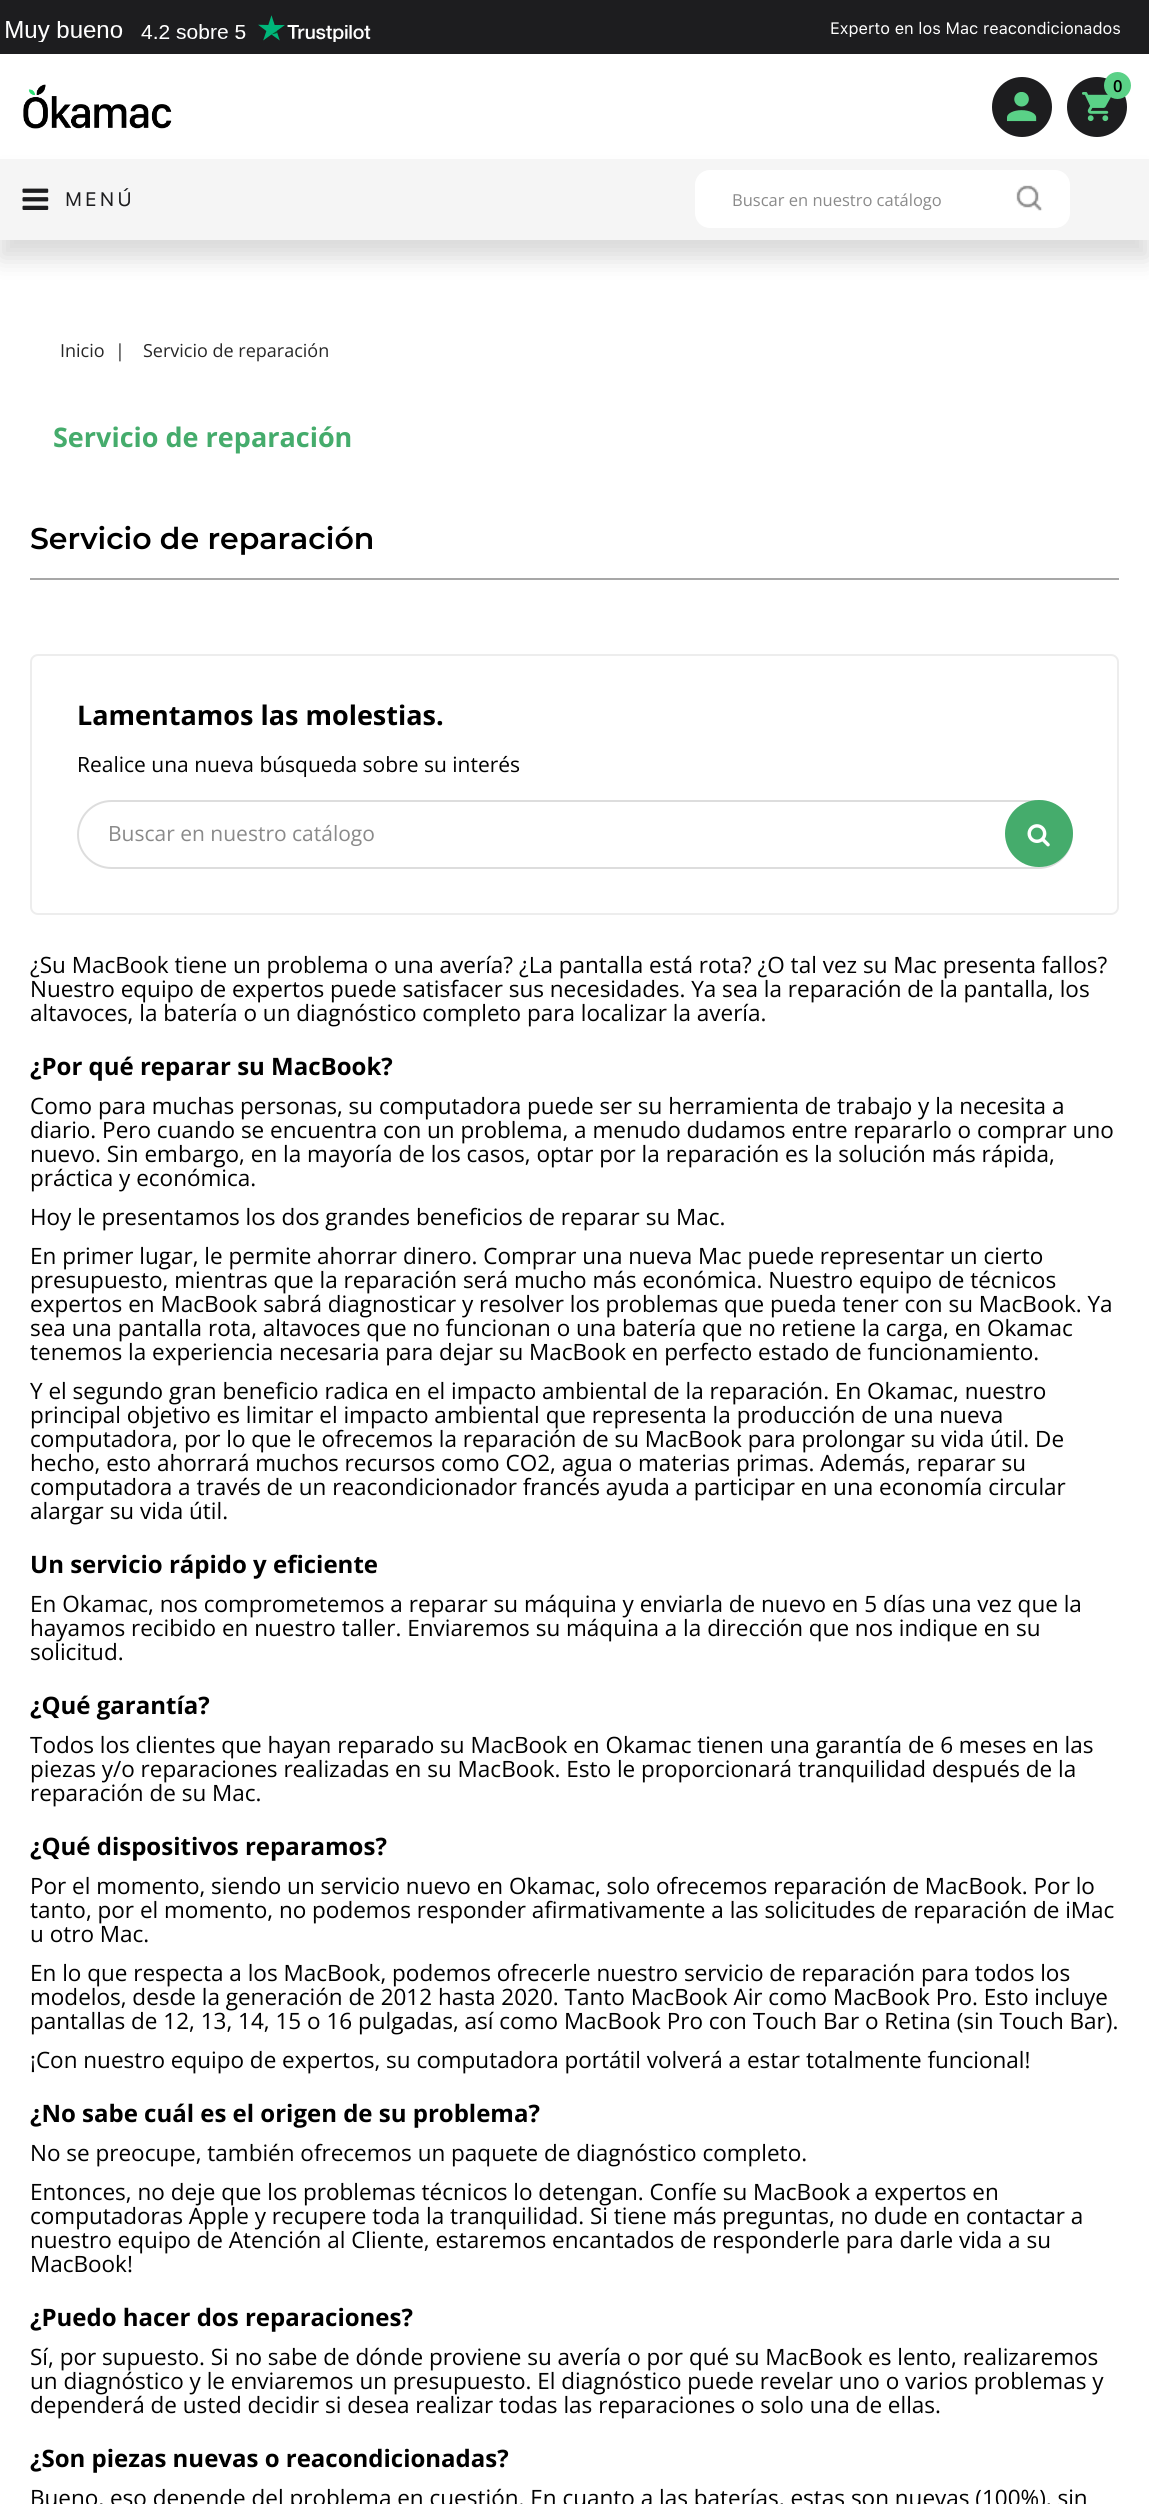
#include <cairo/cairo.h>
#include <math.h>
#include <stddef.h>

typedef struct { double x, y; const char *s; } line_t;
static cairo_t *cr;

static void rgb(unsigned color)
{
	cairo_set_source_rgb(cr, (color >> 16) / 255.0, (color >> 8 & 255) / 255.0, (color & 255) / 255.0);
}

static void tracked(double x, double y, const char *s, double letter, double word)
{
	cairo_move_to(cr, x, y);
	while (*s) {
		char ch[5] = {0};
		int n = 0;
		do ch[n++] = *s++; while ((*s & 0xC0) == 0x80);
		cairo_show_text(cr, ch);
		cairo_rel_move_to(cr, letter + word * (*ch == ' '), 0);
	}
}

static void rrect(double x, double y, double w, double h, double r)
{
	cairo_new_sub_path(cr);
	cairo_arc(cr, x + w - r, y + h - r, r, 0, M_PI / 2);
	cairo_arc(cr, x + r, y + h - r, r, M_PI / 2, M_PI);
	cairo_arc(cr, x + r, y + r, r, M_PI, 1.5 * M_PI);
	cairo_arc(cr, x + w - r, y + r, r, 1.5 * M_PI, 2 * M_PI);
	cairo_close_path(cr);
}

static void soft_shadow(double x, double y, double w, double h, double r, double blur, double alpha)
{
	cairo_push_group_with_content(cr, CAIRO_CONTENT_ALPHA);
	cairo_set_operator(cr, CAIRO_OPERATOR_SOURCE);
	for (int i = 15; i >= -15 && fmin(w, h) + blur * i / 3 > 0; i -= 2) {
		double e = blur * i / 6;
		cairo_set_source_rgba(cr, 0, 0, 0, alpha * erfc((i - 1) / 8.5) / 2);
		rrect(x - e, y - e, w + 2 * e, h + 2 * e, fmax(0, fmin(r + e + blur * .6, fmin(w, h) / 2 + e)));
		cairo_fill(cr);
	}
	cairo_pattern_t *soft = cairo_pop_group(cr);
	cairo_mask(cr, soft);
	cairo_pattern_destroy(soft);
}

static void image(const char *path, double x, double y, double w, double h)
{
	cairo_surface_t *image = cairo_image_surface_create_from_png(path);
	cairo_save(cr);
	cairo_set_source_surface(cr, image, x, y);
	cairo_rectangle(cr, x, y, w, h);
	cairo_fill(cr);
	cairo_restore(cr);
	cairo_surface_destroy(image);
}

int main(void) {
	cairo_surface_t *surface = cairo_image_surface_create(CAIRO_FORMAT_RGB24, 1149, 2504);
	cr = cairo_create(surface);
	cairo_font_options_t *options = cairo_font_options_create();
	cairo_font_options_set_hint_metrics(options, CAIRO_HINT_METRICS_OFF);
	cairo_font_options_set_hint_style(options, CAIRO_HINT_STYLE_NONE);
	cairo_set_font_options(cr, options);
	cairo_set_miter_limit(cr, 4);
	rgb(0xffffff);
	cairo_paint(cr);
	rgb(0x1d1d1f);
	cairo_rectangle(cr, 0, 0, 1149, 54);
	cairo_fill(cr);
	image("img/1.png", 6, 15, 365, 27);
	rgb(0x000000);
	soft_shadow(0, 177, 1149, 81, 0, 12, 0.15);
	rgb(0xf5f5f5);
	cairo_rectangle(cr, 0, 159, 1149, 81);
	cairo_fill(cr);
	image("img/2.png", 22, 188, 27, 22);
	image("img/3.png", 23, 84, 149, 45);
	rgb(0x1d1d1f);
	cairo_arc(cr, 1022, 107, 30, 0, 2 * M_PI);
	cairo_fill(cr);
	image("img/4.png", 1007, 92, 30, 30);
	cairo_arc(cr, 1097, 107, 30, 0, 2 * M_PI);
	cairo_fill(cr);
	image("img/5.png", 1082, 92, 29, 30);
	rgb(0x5ad187);
	cairo_arc(cr, 1117.5, 85.5, 13.5, 0, 2 * M_PI);
	cairo_fill(cr);
	rgb(0xffffff);
	rrect(695, 170, 375, 58, 15);
	cairo_fill(cr);
	image("img/6.png", 1016, 185, 27, 26);
	rgb(0xa7a7a7);
	cairo_rectangle(cr, 30, 578, 1089, 2);
	cairo_fill(cr);
	rrect(31, 655, 1087, 259, 7);
	rgb(0xededed);
	cairo_stroke(cr);
	rrect(78, 801, 994, 67, 33.5);
	rgb(0xdddddd);
	cairo_stroke(cr);
	rgb(0x45ac6c);
	rrect(1005, 800, 68, 67, 33.5);
	cairo_fill(cr);
	image("img/7.png", 1027, 824, 23, 23);
	cairo_select_font_face(cr, "SF Pro Text", CAIRO_FONT_SLANT_NORMAL, CAIRO_FONT_WEIGHT_NORMAL);
	cairo_set_font_size(cr, 16.5);
	rgb(0xffffff);
	cairo_move_to(cr, 830, 34);
	cairo_show_text(cr, "Experto en los Mac reacondicionados");
	cairo_set_font_size(cr, 19.5);
	rgb(0x1d1d1f);
	tracked(65, 206, "MENÚ", 3, 0);
	cairo_select_font_face(cr, "Open Sans SemiBold", CAIRO_FONT_SLANT_NORMAL, CAIRO_FONT_WEIGHT_NORMAL);
	cairo_set_font_size(cr, 16.5);
	rgb(0x000000);
	cairo_move_to(cr, 1113, 92);
	cairo_show_text(cr, "0");
	cairo_select_font_face(cr, "Open Sans", CAIRO_FONT_SLANT_NORMAL, CAIRO_FONT_WEIGHT_NORMAL);
	rgb(0x8a8a8a);
	cairo_move_to(cr, 732, 206);
	cairo_show_text(cr, "Buscar en nuestro catálogo");
	cairo_set_font_size(cr, 18);
	rgb(0x262626);
	{
		static const line_t items[] = {
			{60, 357, "Inicio"},
			{115, 357, "|"},
			{143, 357, "Servicio de reparación"},
		};
		for (size_t i = 0; i < sizeof items / sizeof *items; i++) {
			cairo_move_to(cr, items[i].x, items[i].y);
			cairo_show_text(cr, items[i].s);
		}
	}
	cairo_select_font_face(cr, "Open Sans", CAIRO_FONT_SLANT_NORMAL, CAIRO_FONT_WEIGHT_BOLD);
	cairo_set_font_size(cr, 27);
	rgb(0x45ac6c);
	cairo_move_to(cr, 53, 447);
	cairo_show_text(cr, "Servicio de reparación");
	cairo_select_font_face(cr, "Montserrat SemiBold", CAIRO_FONT_SLANT_NORMAL, CAIRO_FONT_WEIGHT_NORMAL);
	cairo_set_font_size(cr, 30);
	rgb(0x000000);
	cairo_move_to(cr, 30, 549);
	cairo_show_text(cr, "Servicio de reparación");
	cairo_select_font_face(cr, "Open Sans", CAIRO_FONT_SLANT_NORMAL, CAIRO_FONT_WEIGHT_BOLD);
	cairo_set_font_size(cr, 27);
	cairo_move_to(cr, 77, 725);
	cairo_show_text(cr, "Lamentamos las molestias.");
	cairo_select_font_face(cr, "Open Sans", CAIRO_FONT_SLANT_NORMAL, CAIRO_FONT_WEIGHT_NORMAL);
	cairo_set_font_size(cr, 21);
	cairo_move_to(cr, 77, 772);
	cairo_show_text(cr, "Realice una nueva búsqueda sobre su interés");
	rgb(0x8a8a8a);
	cairo_move_to(cr, 108, 841);
	cairo_show_text(cr, "Buscar en nuestro catálogo");
	cairo_set_font_size(cr, 22.5);
	rgb(0x000000);
	{
		static const line_t items[] = {
			{30, 973, "¿Su MacBook tiene un problema o una avería? ¿La pantalla está rota? ¿O tal vez su Mac presenta fallos?"},
			{30, 997, "Nuestro equipo de expertos puede satisfacer sus necesidades. Ya sea la reparación de la pantalla, los"},
			{30, 1021, "altavoces, la batería o un diagnóstico completo para localizar la avería."},
		};
		for (size_t i = 0; i < sizeof items / sizeof *items; i++) {
			cairo_move_to(cr, items[i].x, items[i].y);
			cairo_show_text(cr, items[i].s);
		}
	}
	cairo_select_font_face(cr, "Open Sans", CAIRO_FONT_SLANT_NORMAL, CAIRO_FONT_WEIGHT_BOLD);
	cairo_set_font_size(cr, 24);
	cairo_move_to(cr, 30, 1075);
	cairo_show_text(cr, "¿Por qué reparar su MacBook?");
	cairo_select_font_face(cr, "Open Sans", CAIRO_FONT_SLANT_NORMAL, CAIRO_FONT_WEIGHT_NORMAL);
	cairo_set_font_size(cr, 22.5);
	{
		static const line_t items[] = {
			{30, 1114, "Como para muchas personas, su computadora puede ser su herramienta de trabajo y la necesita a"},
			{30, 1138, "diario. Pero cuando se encuentra con un problema, a menudo dudamos entre repararlo o comprar uno"},
			{30, 1162, "nuevo. Sin embargo, en la mayoría de los casos, optar por la reparación es la solución más rápida,"},
			{30, 1186, "práctica y económica."},
			{30, 1225, "Hoy le presentamos los dos grandes beneficios de reparar su Mac."},
			{30, 1264, "En primer lugar, le permite ahorrar dinero. Comprar una nueva Mac puede representar un cierto"},
			{30, 1288, "presupuesto, mientras que la reparación será mucho más económica. Nuestro equipo de técnicos"},
			{30, 1312, "expertos en MacBook sabrá diagnosticar y resolver los problemas que pueda tener con su MacBook. Ya"},
			{30, 1336, "sea una pantalla rota, altavoces que no funcionan o una batería que no retiene la carga, en Okamac"},
			{30, 1360, "tenemos la experiencia necesaria para dejar su MacBook en perfecto estado de funcionamiento."},
			{30, 1399, "Y el segundo gran beneficio radica en el impacto ambiental de la reparación. En Okamac, nuestro"},
			{30, 1423, "principal objetivo es limitar el impacto ambiental que representa la producción de una nueva"},
			{30, 1447, "computadora, por lo que le ofrecemos la reparación de su MacBook para prolongar su vida útil. De"},
			{30, 1471, "hecho, esto ahorrará muchos recursos como CO2, agua o materias primas. Además, reparar su"},
			{30, 1495, "computadora a través de un reacondicionador francés ayuda a participar en una economía circular"},
			{30, 1519, "alargar su vida útil."},
		};
		for (size_t i = 0; i < sizeof items / sizeof *items; i++) {
			cairo_move_to(cr, items[i].x, items[i].y);
			cairo_show_text(cr, items[i].s);
		}
	}
	cairo_select_font_face(cr, "Open Sans", CAIRO_FONT_SLANT_NORMAL, CAIRO_FONT_WEIGHT_BOLD);
	cairo_set_font_size(cr, 24);
	cairo_move_to(cr, 30, 1573);
	cairo_show_text(cr, "Un servicio rápido y eficiente");
	cairo_select_font_face(cr, "Open Sans", CAIRO_FONT_SLANT_NORMAL, CAIRO_FONT_WEIGHT_NORMAL);
	cairo_set_font_size(cr, 22.5);
	{
		static const line_t items[] = {
			{30, 1612, "En Okamac, nos comprometemos a reparar su máquina y enviarla de nuevo en 5 días una vez que la"},
			{30, 1636, "hayamos recibido en nuestro taller. Enviaremos su máquina a la dirección que nos indique en su"},
			{30, 1660, "solicitud."},
		};
		for (size_t i = 0; i < sizeof items / sizeof *items; i++) {
			cairo_move_to(cr, items[i].x, items[i].y);
			cairo_show_text(cr, items[i].s);
		}
	}
	cairo_select_font_face(cr, "Open Sans", CAIRO_FONT_SLANT_NORMAL, CAIRO_FONT_WEIGHT_BOLD);
	cairo_set_font_size(cr, 24);
	cairo_move_to(cr, 30, 1714);
	cairo_show_text(cr, "¿Qué garantía?");
	cairo_select_font_face(cr, "Open Sans", CAIRO_FONT_SLANT_NORMAL, CAIRO_FONT_WEIGHT_NORMAL);
	cairo_set_font_size(cr, 22.5);
	{
		static const line_t items[] = {
			{30, 1753, "Todos los clientes que hayan reparado su MacBook en Okamac tienen una garantía de 6 meses en las"},
			{30, 1777, "piezas y/o reparaciones realizadas en su MacBook. Esto le proporcionará tranquilidad después de la"},
			{30, 1801, "reparación de su Mac."},
		};
		for (size_t i = 0; i < sizeof items / sizeof *items; i++) {
			cairo_move_to(cr, items[i].x, items[i].y);
			cairo_show_text(cr, items[i].s);
		}
	}
	cairo_select_font_face(cr, "Open Sans", CAIRO_FONT_SLANT_NORMAL, CAIRO_FONT_WEIGHT_BOLD);
	cairo_set_font_size(cr, 24);
	cairo_move_to(cr, 30, 1855);
	cairo_show_text(cr, "¿Qué dispositivos reparamos?");
	cairo_select_font_face(cr, "Open Sans", CAIRO_FONT_SLANT_NORMAL, CAIRO_FONT_WEIGHT_NORMAL);
	cairo_set_font_size(cr, 22.5);
	{
		static const line_t items[] = {
			{30, 1894, "Por el momento, siendo un servicio nuevo en Okamac, solo ofrecemos reparación de MacBook. Por lo"},
			{30, 1918, "tanto, por el momento, no podemos responder afirmativamente a las solicitudes de reparación de iMac"},
			{30, 1942, "u otro Mac."},
			{30, 1981, "En lo que respecta a los MacBook, podemos ofrecerle nuestro servicio de reparación para todos los"},
			{30, 2005, "modelos, desde la generación de 2012 hasta 2020. Tanto MacBook Air como MacBook Pro. Esto incluye"},
			{30, 2029, "pantallas de 12, 13, 14, 15 o 16 pulgadas, así como MacBook Pro con Touch Bar o Retina (sin Touch Bar)."},
			{30, 2068, "¡Con nuestro equipo de expertos, su computadora portátil volverá a estar totalmente funcional!"},
		};
		for (size_t i = 0; i < sizeof items / sizeof *items; i++) {
			cairo_move_to(cr, items[i].x, items[i].y);
			cairo_show_text(cr, items[i].s);
		}
	}
	cairo_select_font_face(cr, "Open Sans", CAIRO_FONT_SLANT_NORMAL, CAIRO_FONT_WEIGHT_BOLD);
	cairo_set_font_size(cr, 24);
	cairo_move_to(cr, 30, 2122);
	cairo_show_text(cr, "¿No sabe cuál es el origen de su problema?");
	cairo_select_font_face(cr, "Open Sans", CAIRO_FONT_SLANT_NORMAL, CAIRO_FONT_WEIGHT_NORMAL);
	cairo_set_font_size(cr, 22.5);
	{
		static const line_t items[] = {
			{30, 2161, "No se preocupe, también ofrecemos un paquete de diagnóstico completo."},
			{30, 2200, "Entonces, no deje que los problemas técnicos lo detengan. Confíe su MacBook a expertos en"},
			{30, 2224, "computadoras Apple y recupere toda la tranquilidad. Si tiene más preguntas, no dude en contactar a"},
			{30, 2248, "nuestro equipo de Atención al Cliente, estaremos encantados de responderle para darle vida a su"},
			{30, 2272, "MacBook!"},
		};
		for (size_t i = 0; i < sizeof items / sizeof *items; i++) {
			cairo_move_to(cr, items[i].x, items[i].y);
			cairo_show_text(cr, items[i].s);
		}
	}
	cairo_select_font_face(cr, "Open Sans", CAIRO_FONT_SLANT_NORMAL, CAIRO_FONT_WEIGHT_BOLD);
	cairo_set_font_size(cr, 24);
	cairo_move_to(cr, 30, 2326);
	cairo_show_text(cr, "¿Puedo hacer dos reparaciones?");
	cairo_select_font_face(cr, "Open Sans", CAIRO_FONT_SLANT_NORMAL, CAIRO_FONT_WEIGHT_NORMAL);
	cairo_set_font_size(cr, 22.5);
	{
		static const line_t items[] = {
			{30, 2365, "Sí, por supuesto. Si no sabe de dónde proviene su avería o por qué su MacBook es lento, realizaremos"},
			{30, 2389, "un diagnóstico y le enviaremos un presupuesto. El diagnóstico puede revelar uno o varios problemas y"},
			{30, 2413, "dependerá de usted decidir si desea realizar todas las reparaciones o solo una de ellas."},
		};
		for (size_t i = 0; i < sizeof items / sizeof *items; i++) {
			cairo_move_to(cr, items[i].x, items[i].y);
			cairo_show_text(cr, items[i].s);
		}
	}
	cairo_select_font_face(cr, "Open Sans", CAIRO_FONT_SLANT_NORMAL, CAIRO_FONT_WEIGHT_BOLD);
	cairo_set_font_size(cr, 24);
	cairo_move_to(cr, 30, 2467);
	cairo_show_text(cr, "¿Son piezas nuevas o reacondicionadas?");
	cairo_select_font_face(cr, "Open Sans", CAIRO_FONT_SLANT_NORMAL, CAIRO_FONT_WEIGHT_NORMAL);
	cairo_set_font_size(cr, 22.5);
	cairo_move_to(cr, 30, 2506);
	cairo_show_text(cr, "Bueno, eso depende del problema en cuestión. En cuanto a las baterías, estas son nuevas (100%), sin");
	cairo_surface_write_to_png(surface, "page.png");
	cairo_font_options_destroy(options);
	cairo_destroy(cr);
	cairo_surface_destroy(surface);
	return 0;
}
